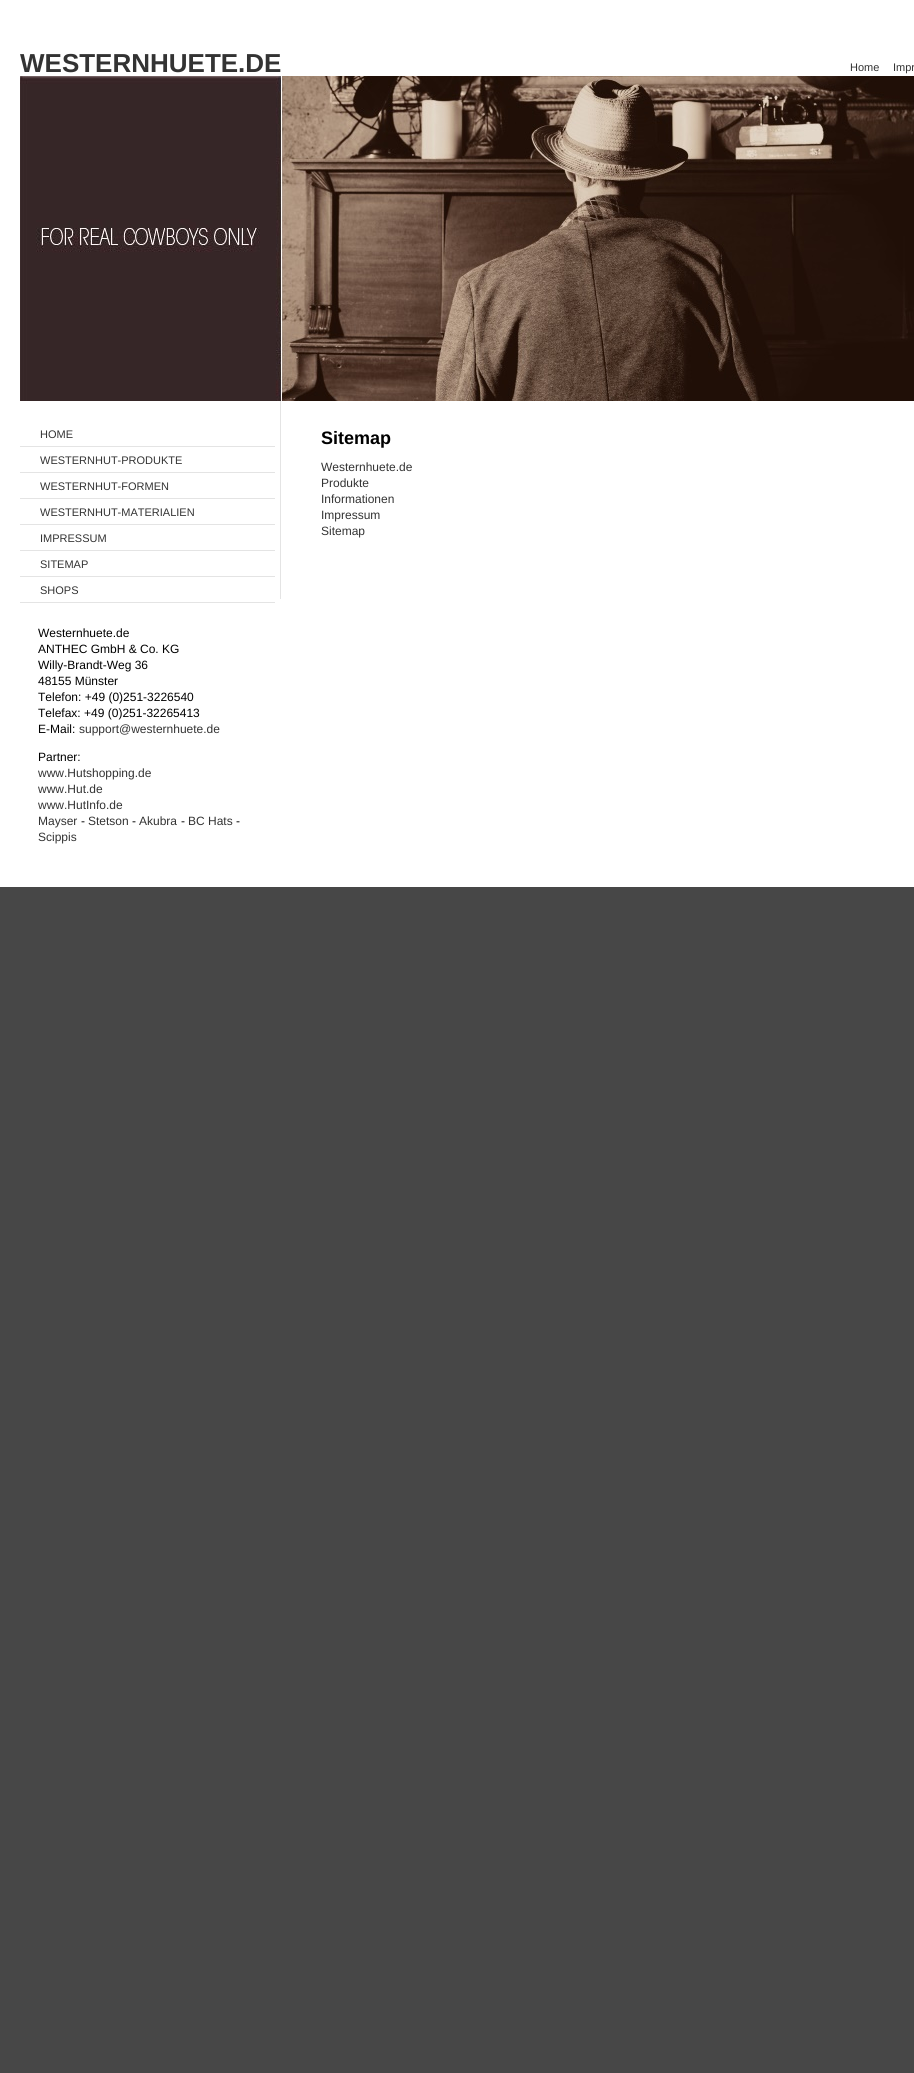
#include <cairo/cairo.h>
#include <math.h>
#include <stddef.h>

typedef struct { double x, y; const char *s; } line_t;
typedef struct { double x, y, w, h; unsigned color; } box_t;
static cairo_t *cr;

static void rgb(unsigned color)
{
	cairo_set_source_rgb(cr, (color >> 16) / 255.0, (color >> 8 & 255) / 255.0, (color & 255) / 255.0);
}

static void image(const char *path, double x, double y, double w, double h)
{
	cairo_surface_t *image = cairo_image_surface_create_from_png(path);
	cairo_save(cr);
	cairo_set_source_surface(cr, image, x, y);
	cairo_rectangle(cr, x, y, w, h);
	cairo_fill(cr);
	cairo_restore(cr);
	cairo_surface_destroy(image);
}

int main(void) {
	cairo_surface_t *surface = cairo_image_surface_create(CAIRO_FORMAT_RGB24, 914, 2073);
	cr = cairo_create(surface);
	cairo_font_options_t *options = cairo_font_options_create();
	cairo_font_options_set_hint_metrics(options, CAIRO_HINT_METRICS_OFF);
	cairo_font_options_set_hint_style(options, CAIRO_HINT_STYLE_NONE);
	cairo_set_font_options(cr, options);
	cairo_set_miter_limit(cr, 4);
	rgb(0x474747);
	cairo_paint(cr);
	rgb(0xffffff);
	cairo_rectangle(cr, 0, 0, 914, 887);
	cairo_fill(cr);
	image("img/1.png", 20, 76, 894, 325);
	{
		static const box_t items[] = {
			{20, 446, 255, 1, 0xe4e4e4},
			{20, 472, 255, 1, 0xe4e4e4},
			{20, 498, 255, 1, 0xe4e4e4},
			{20, 524, 255, 1, 0xe4e4e4},
			{20, 550, 255, 1, 0xe4e4e4},
			{20, 576, 255, 1, 0xe4e4e4},
			{20, 602, 255, 1, 0xe4e4e4},
			{280, 401, 1, 198, 0xe4e4e4},
		};
		for (size_t i = 0; i < sizeof items / sizeof *items; i++) {
			rgb(items[i].color);
			cairo_rectangle(cr, items[i].x, items[i].y, items[i].w, items[i].h);
			cairo_fill(cr);
		}
	}
	cairo_select_font_face(cr, "Liberation Sans", CAIRO_FONT_SLANT_NORMAL, CAIRO_FONT_WEIGHT_BOLD);
	cairo_set_font_size(cr, 26);
	rgb(0x333333);
	cairo_move_to(cr, 20, 72);
	cairo_show_text(cr, "WESTERNHUETE.DE");
	cairo_select_font_face(cr, "Liberation Sans", CAIRO_FONT_SLANT_NORMAL, CAIRO_FONT_WEIGHT_NORMAL);
	cairo_set_font_size(cr, 11);
	{
		static const line_t items[] = {
			{850, 71, "Home"},
			{893, 71, "Impr"},
			{40, 438, "HOME"},
			{40, 464, "WESTERNHUT-PRODUKTE"},
			{40, 490, "WESTERNHUT-FORMEN"},
			{40, 516, "WESTERNHUT-MATERIALIEN"},
			{40, 542, "IMPRESSUM"},
			{40, 568, "SITEMAP"},
			{40, 594, "SHOPS"},
		};
		for (size_t i = 0; i < sizeof items / sizeof *items; i++) {
			cairo_move_to(cr, items[i].x, items[i].y);
			cairo_show_text(cr, items[i].s);
		}
	}
	cairo_set_font_size(cr, 12);
	rgb(0x000000);
	{
		static const line_t items[] = {
			{38, 637, "Westernhuete.de"},
			{38, 653, "ANTHEC GmbH & Co. KG"},
			{38, 669, "Willy-Brandt-Weg 36"},
			{38, 685, "48155 Münster"},
			{38, 701, "Telefon: +49 (0)251-3226540"},
			{38, 717, "Telefax: +49 (0)251-32265413"},
			{38, 733, "E-Mail:"},
		};
		for (size_t i = 0; i < sizeof items / sizeof *items; i++) {
			cairo_move_to(cr, items[i].x, items[i].y);
			cairo_show_text(cr, items[i].s);
		}
	}
	rgb(0x333333);
	cairo_move_to(cr, 79, 733);
	cairo_show_text(cr, "support@westernhuete.de");
	rgb(0x000000);
	cairo_move_to(cr, 38, 761);
	cairo_show_text(cr, "Partner:");
	rgb(0x333333);
	{
		static const line_t items[] = {
			{38, 777, "www.Hutshopping.de"},
			{38, 793, "www.Hut.de"},
			{38, 809, "www.HutInfo.de"},
			{38, 825, "Mayser"},
		};
		for (size_t i = 0; i < sizeof items / sizeof *items; i++) {
			cairo_move_to(cr, items[i].x, items[i].y);
			cairo_show_text(cr, items[i].s);
		}
	}
	rgb(0x000000);
	cairo_move_to(cr, 81, 825);
	cairo_show_text(cr, "-");
	rgb(0x333333);
	cairo_move_to(cr, 88, 825);
	cairo_show_text(cr, "Stetson");
	rgb(0x000000);
	cairo_move_to(cr, 132, 825);
	cairo_show_text(cr, "-");
	rgb(0x333333);
	cairo_move_to(cr, 139, 825);
	cairo_show_text(cr, "Akubra");
	rgb(0x000000);
	cairo_move_to(cr, 181, 825);
	cairo_show_text(cr, "-");
	rgb(0x333333);
	cairo_move_to(cr, 188, 825);
	cairo_show_text(cr, "BC Hats");
	rgb(0x000000);
	cairo_move_to(cr, 236, 825);
	cairo_show_text(cr, "-");
	rgb(0x333333);
	cairo_move_to(cr, 38, 841);
	cairo_show_text(cr, "Scippis");
	cairo_select_font_face(cr, "Liberation Sans", CAIRO_FONT_SLANT_NORMAL, CAIRO_FONT_WEIGHT_BOLD);
	cairo_set_font_size(cr, 18);
	rgb(0x000000);
	cairo_move_to(cr, 321, 444);
	cairo_show_text(cr, "Sitemap");
	cairo_select_font_face(cr, "Liberation Sans", CAIRO_FONT_SLANT_NORMAL, CAIRO_FONT_WEIGHT_NORMAL);
	cairo_set_font_size(cr, 12);
	rgb(0x333333);
	{
		static const line_t items[] = {
			{321, 471, "Westernhuete.de"},
			{321, 487, "Produkte"},
			{321, 503, "Informationen"},
			{321, 519, "Impressum"},
			{321, 535, "Sitemap"},
		};
		for (size_t i = 0; i < sizeof items / sizeof *items; i++) {
			cairo_move_to(cr, items[i].x, items[i].y);
			cairo_show_text(cr, items[i].s);
		}
	}
	cairo_surface_write_to_png(surface, "page.png");
	cairo_font_options_destroy(options);
	cairo_destroy(cr);
	cairo_surface_destroy(surface);
	return 0;
}
